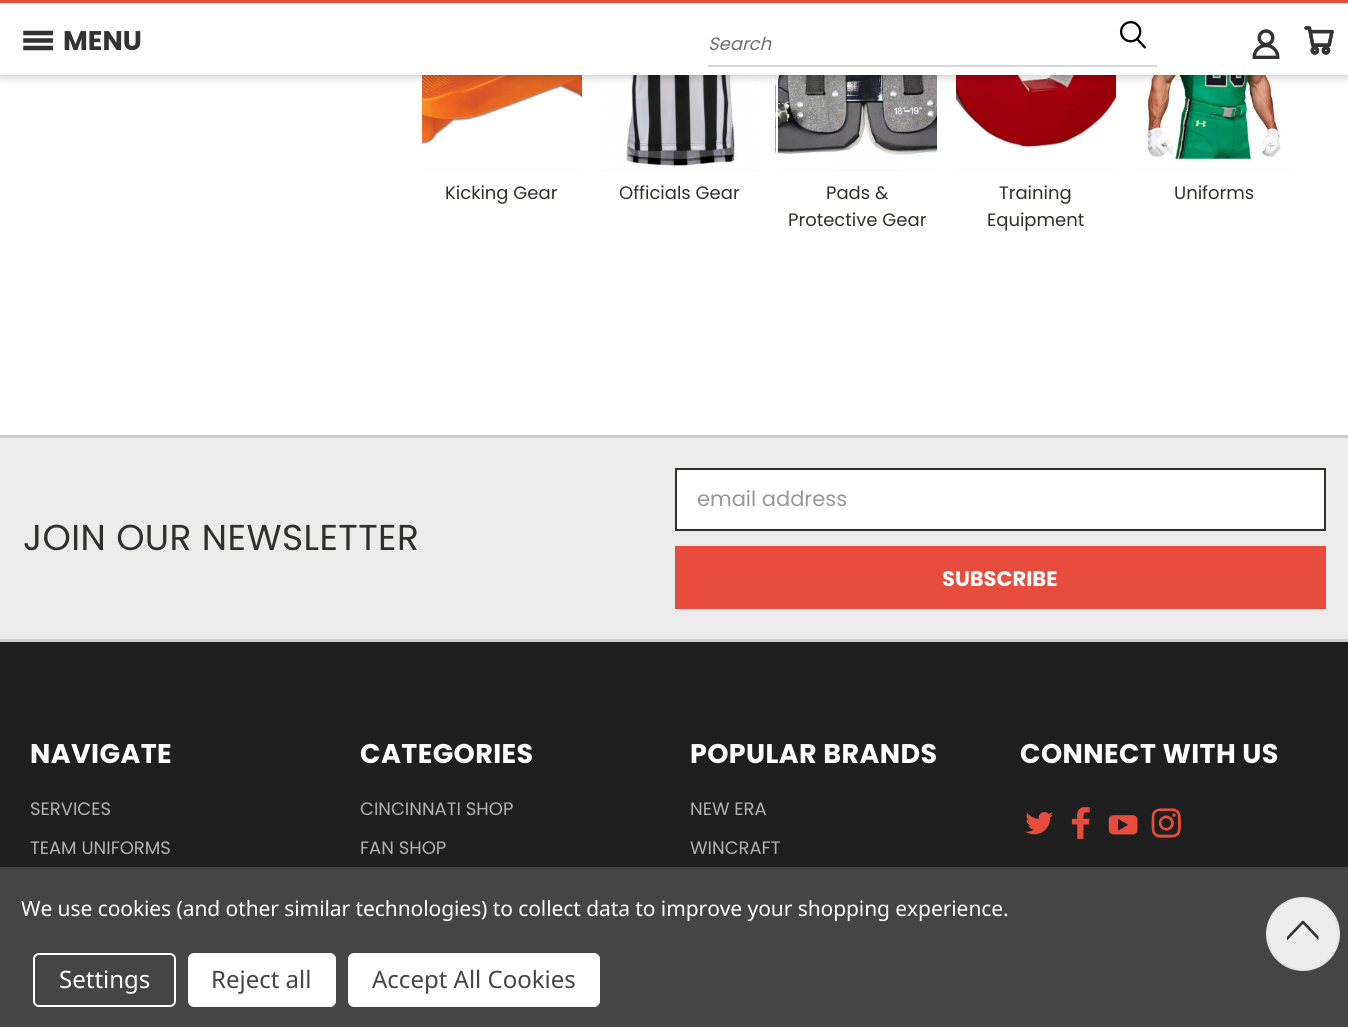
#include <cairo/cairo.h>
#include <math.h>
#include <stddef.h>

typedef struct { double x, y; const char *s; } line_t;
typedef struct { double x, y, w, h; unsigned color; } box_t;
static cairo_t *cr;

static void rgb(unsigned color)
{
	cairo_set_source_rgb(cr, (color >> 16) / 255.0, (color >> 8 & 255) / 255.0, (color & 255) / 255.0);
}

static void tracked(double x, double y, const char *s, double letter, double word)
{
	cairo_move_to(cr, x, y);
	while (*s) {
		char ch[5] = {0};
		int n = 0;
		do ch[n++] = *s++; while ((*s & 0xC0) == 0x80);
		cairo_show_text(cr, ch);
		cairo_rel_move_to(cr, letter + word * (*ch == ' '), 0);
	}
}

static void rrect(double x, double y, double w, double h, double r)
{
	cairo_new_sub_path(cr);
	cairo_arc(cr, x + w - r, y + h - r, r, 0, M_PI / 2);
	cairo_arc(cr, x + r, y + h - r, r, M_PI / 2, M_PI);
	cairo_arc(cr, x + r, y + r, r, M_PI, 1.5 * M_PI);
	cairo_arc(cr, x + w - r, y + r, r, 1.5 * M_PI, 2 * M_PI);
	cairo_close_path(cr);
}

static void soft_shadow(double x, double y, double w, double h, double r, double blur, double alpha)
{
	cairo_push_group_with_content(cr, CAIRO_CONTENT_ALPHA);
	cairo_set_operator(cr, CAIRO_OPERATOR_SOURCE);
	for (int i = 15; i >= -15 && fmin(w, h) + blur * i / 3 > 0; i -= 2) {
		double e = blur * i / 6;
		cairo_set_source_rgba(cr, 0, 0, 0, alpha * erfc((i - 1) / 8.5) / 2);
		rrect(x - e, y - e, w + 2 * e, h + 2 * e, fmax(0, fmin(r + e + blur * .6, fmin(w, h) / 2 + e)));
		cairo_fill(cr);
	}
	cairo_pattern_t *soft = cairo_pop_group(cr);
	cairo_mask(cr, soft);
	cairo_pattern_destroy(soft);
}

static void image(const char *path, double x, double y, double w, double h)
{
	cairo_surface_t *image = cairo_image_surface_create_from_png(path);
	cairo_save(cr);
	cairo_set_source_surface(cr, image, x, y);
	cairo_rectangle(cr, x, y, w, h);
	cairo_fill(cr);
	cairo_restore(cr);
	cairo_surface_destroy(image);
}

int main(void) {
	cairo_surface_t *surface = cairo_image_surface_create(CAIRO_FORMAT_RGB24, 1348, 1027);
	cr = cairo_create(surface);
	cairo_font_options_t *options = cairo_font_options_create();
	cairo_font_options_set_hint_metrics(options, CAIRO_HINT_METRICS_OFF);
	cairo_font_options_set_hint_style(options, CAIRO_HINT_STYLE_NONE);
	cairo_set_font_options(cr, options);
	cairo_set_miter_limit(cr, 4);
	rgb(0xffffff);
	cairo_paint(cr);
	rgb(0xf7f7f7);
	cairo_rectangle(cr, 422, 170, 160, 1);
	cairo_fill(cr);
	image("img/5.png", 422, 75, 160, 96);
	cairo_rectangle(cr, 601, 170, 158, 1);
	cairo_fill(cr);
	image("img/6.png", 601, 75, 158, 96);
	cairo_rectangle(cr, 778, 170, 159, 1);
	cairo_fill(cr);
	image("img/7.png", 775, 75, 162, 96);
	cairo_rectangle(cr, 777, -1, 161, 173);
	rgb(0xffffff);
	cairo_stroke(cr);
	rgb(0xf7f7f7);
	cairo_rectangle(cr, 956, 170, 160, 1);
	cairo_fill(cr);
	image("img/8.png", 956, 75, 160, 96);
	cairo_rectangle(cr, 1135, 170, 159, 1);
	cairo_fill(cr);
	image("img/9.png", 1135, 75, 159, 96);
	rgb(0x000000);
	soft_shadow(0, 0, 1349, 75, 0, 5, 0.3);
	rgb(0xffffff);
	cairo_rectangle(cr, 0, 3, 1348, 72);
	cairo_fill(cr);
	rgb(0xe74c3c);
	cairo_rectangle(cr, 0, 0, 1348, 3);
	cairo_fill(cr);
	image("img/1.png", 23, 30, 30, 21);
	rgb(0xd7d7d7);
	cairo_rectangle(cr, 708, 65, 449, 2);
	cairo_fill(cr);
	image("img/2.png", 1119, 21, 28, 28);
	image("img/3.png", 1252, 29, 28, 30);
	image("img/4.png", 1304, 26, 30, 29);
	rgb(0xebebeb);
	cairo_rectangle(cr, 0, 438, 1348, 201);
	cairo_fill(cr);
	rgb(0xcdcccc);
	cairo_rectangle(cr, 0, 435, 1348, 3);
	cairo_fill(cr);
	rgb(0xffffff);
	cairo_rectangle(cr, 676, 469, 649, 61);
	cairo_fill_preserve(cr);
	rgb(0x2f2f2b);
	cairo_stroke(cr);
	{
		static const box_t items[] = {
			{675, 546, 651, 63, 0xe74c3c},
			{0, 642, 1348, 225, 0x1f1f1f},
			{0, 639, 1348, 3, 0xcdcccc},
		};
		for (size_t i = 0; i < sizeof items / sizeof *items; i++) {
			rgb(items[i].color);
			cairo_rectangle(cr, items[i].x, items[i].y, items[i].w, items[i].h);
			cairo_fill(cr);
		}
	}
	image("img/10.png", 1025, 812, 28, 23);
	image("img/11.png", 1071, 807, 19, 32);
	image("img/12.png", 1108, 815, 30, 20);
	image("img/13.png", 1151, 808, 30, 30);
	rgb(0x454545);
	cairo_rectangle(cr, 0, 867, 1348, 160);
	cairo_fill(cr);
	rgb(0xececec);
	cairo_arc(cr, 1303, 934, 36, 0, 2 * M_PI);
	cairo_fill_preserve(cr);
	rgb(0xe4e3e1);
	cairo_stroke(cr);
	cairo_save(cr);
	cairo_new_path(cr);
	cairo_move_to(cr, 1318.5, 920);
	cairo_line_to(cr, 1318.5, 952);
	cairo_line_to(cr, 1287, 952);
	cairo_line_to(cr, 1287, 920);
	cairo_close_path(cr);
	cairo_clip(cr);
	cairo_new_path(cr);
	cairo_move_to(cr, 1329, 949.5);
	cairo_line_to(cr, 1303, 922);
	cairo_line_to(cr, 1276.5, 949.5);
	rgb(0x313131);
	cairo_set_line_width(cr, 2.6);
	cairo_set_line_cap(cr, CAIRO_LINE_CAP_ROUND);
	cairo_set_line_join(cr, CAIRO_LINE_JOIN_ROUND);
	cairo_stroke(cr);
	cairo_restore(cr);
	rrect(34, 954, 141, 52, 5);
	rgb(0xffffff);
	cairo_stroke(cr);
	rrect(188, 953, 148, 54, 6);
	cairo_fill(cr);
	rrect(348, 953, 252, 54, 6);
	cairo_fill(cr);
	cairo_select_font_face(cr, "Poppins", CAIRO_FONT_SLANT_NORMAL, CAIRO_FONT_WEIGHT_BOLD);
	cairo_set_font_size(cr, 27);
	rgb(0x333333);
	cairo_move_to(cr, 63, 50);
	cairo_show_text(cr, "MENU");
	cairo_select_font_face(cr, "Poppins", CAIRO_FONT_SLANT_ITALIC, CAIRO_FONT_WEIGHT_NORMAL);
	cairo_set_font_size(cr, 18);
	rgb(0x70706e);
	cairo_move_to(cr, 708, 50);
	cairo_show_text(cr, "Search");
	cairo_select_font_face(cr, "Poppins", CAIRO_FONT_SLANT_NORMAL, CAIRO_FONT_WEIGHT_NORMAL);
	rgb(0x2f2f2b);
	{
		static const line_t items[] = {
			{445, 199, "Kicking Gear"},
			{619, 199, "Officials Gear"},
			{826, 199, "Pads &"},
			{788, 226, "Protective Gear"},
			{999, 199, "Training"},
			{987, 226, "Equipment"},
			{1174, 199, "Uniforms"},
		};
		for (size_t i = 0; i < sizeof items / sizeof *items; i++) {
			cairo_move_to(cr, items[i].x, items[i].y);
			cairo_show_text(cr, items[i].s);
		}
	}
	cairo_set_font_size(cr, 36);
	tracked(23, 550, "JOIN OUR NEWSLETTER", 0.4, 0);
	cairo_save(cr);
	cairo_rectangle(cr, 698, 483, 606, 32);
	cairo_clip(cr);
	cairo_set_font_size(cr, 21);
	rgb(0x999999);
	cairo_move_to(cr, 697, 506);
	cairo_show_text(cr, "email address");
	cairo_restore(cr);
	cairo_select_font_face(cr, "Poppins", CAIRO_FONT_SLANT_NORMAL, CAIRO_FONT_WEIGHT_BOLD);
	cairo_set_font_size(cr, 21);
	rgb(0xffffff);
	cairo_move_to(cr, 942, 586);
	cairo_show_text(cr, "SUBSCRIBE");
	cairo_set_font_size(cr, 27);
	tracked(30, 763, "NAVIGATE", 0.4, 0);
	cairo_select_font_face(cr, "Poppins", CAIRO_FONT_SLANT_NORMAL, CAIRO_FONT_WEIGHT_NORMAL);
	cairo_set_font_size(cr, 18);
	rgb(0xb2b2b2);
	cairo_move_to(cr, 30, 815);
	cairo_show_text(cr, "SERVICES");
	cairo_move_to(cr, 30, 854);
	cairo_show_text(cr, "TEAM UNIFORMS");
	cairo_select_font_face(cr, "Poppins", CAIRO_FONT_SLANT_NORMAL, CAIRO_FONT_WEIGHT_BOLD);
	cairo_set_font_size(cr, 27);
	rgb(0xffffff);
	tracked(360, 763, "CATEGORIES", 0.4, 0);
	cairo_select_font_face(cr, "Poppins", CAIRO_FONT_SLANT_NORMAL, CAIRO_FONT_WEIGHT_NORMAL);
	cairo_set_font_size(cr, 18);
	rgb(0xb2b2b2);
	cairo_move_to(cr, 360, 815);
	cairo_show_text(cr, "CINCINNATI SHOP");
	cairo_move_to(cr, 360, 854);
	cairo_show_text(cr, "FAN SHOP");
	cairo_select_font_face(cr, "Poppins", CAIRO_FONT_SLANT_NORMAL, CAIRO_FONT_WEIGHT_BOLD);
	cairo_set_font_size(cr, 27);
	rgb(0xffffff);
	tracked(690, 763, "POPULAR BRANDS", 0.4, 0);
	cairo_select_font_face(cr, "Poppins", CAIRO_FONT_SLANT_NORMAL, CAIRO_FONT_WEIGHT_NORMAL);
	cairo_set_font_size(cr, 18);
	rgb(0xb2b2b2);
	cairo_move_to(cr, 690, 815);
	cairo_show_text(cr, "NEW ERA");
	cairo_move_to(cr, 690, 854);
	cairo_show_text(cr, "WINCRAFT");
	cairo_select_font_face(cr, "Poppins", CAIRO_FONT_SLANT_NORMAL, CAIRO_FONT_WEIGHT_BOLD);
	cairo_set_font_size(cr, 27);
	rgb(0xffffff);
	tracked(1020, 763, "CONNECT WITH US", 0.4, 0);
	cairo_select_font_face(cr, "Noto Sans", CAIRO_FONT_SLANT_NORMAL, CAIRO_FONT_WEIGHT_NORMAL);
	cairo_set_font_size(cr, 21);
	tracked(21, 916, "We use cookies (and other similar technologies) to collect data to improve your shopping experience.", -0.08, 0);
	cairo_set_font_size(cr, 24);
	cairo_move_to(cr, 59, 988);
	cairo_show_text(cr, "Settings");
	rgb(0x454545);
	cairo_move_to(cr, 211, 988);
	cairo_show_text(cr, "Reject all");
	cairo_move_to(cr, 372, 988);
	cairo_show_text(cr, "Accept All Cookies");
	cairo_surface_write_to_png(surface, "page.png");
	cairo_font_options_destroy(options);
	cairo_destroy(cr);
	cairo_surface_destroy(surface);
	return 0;
}
